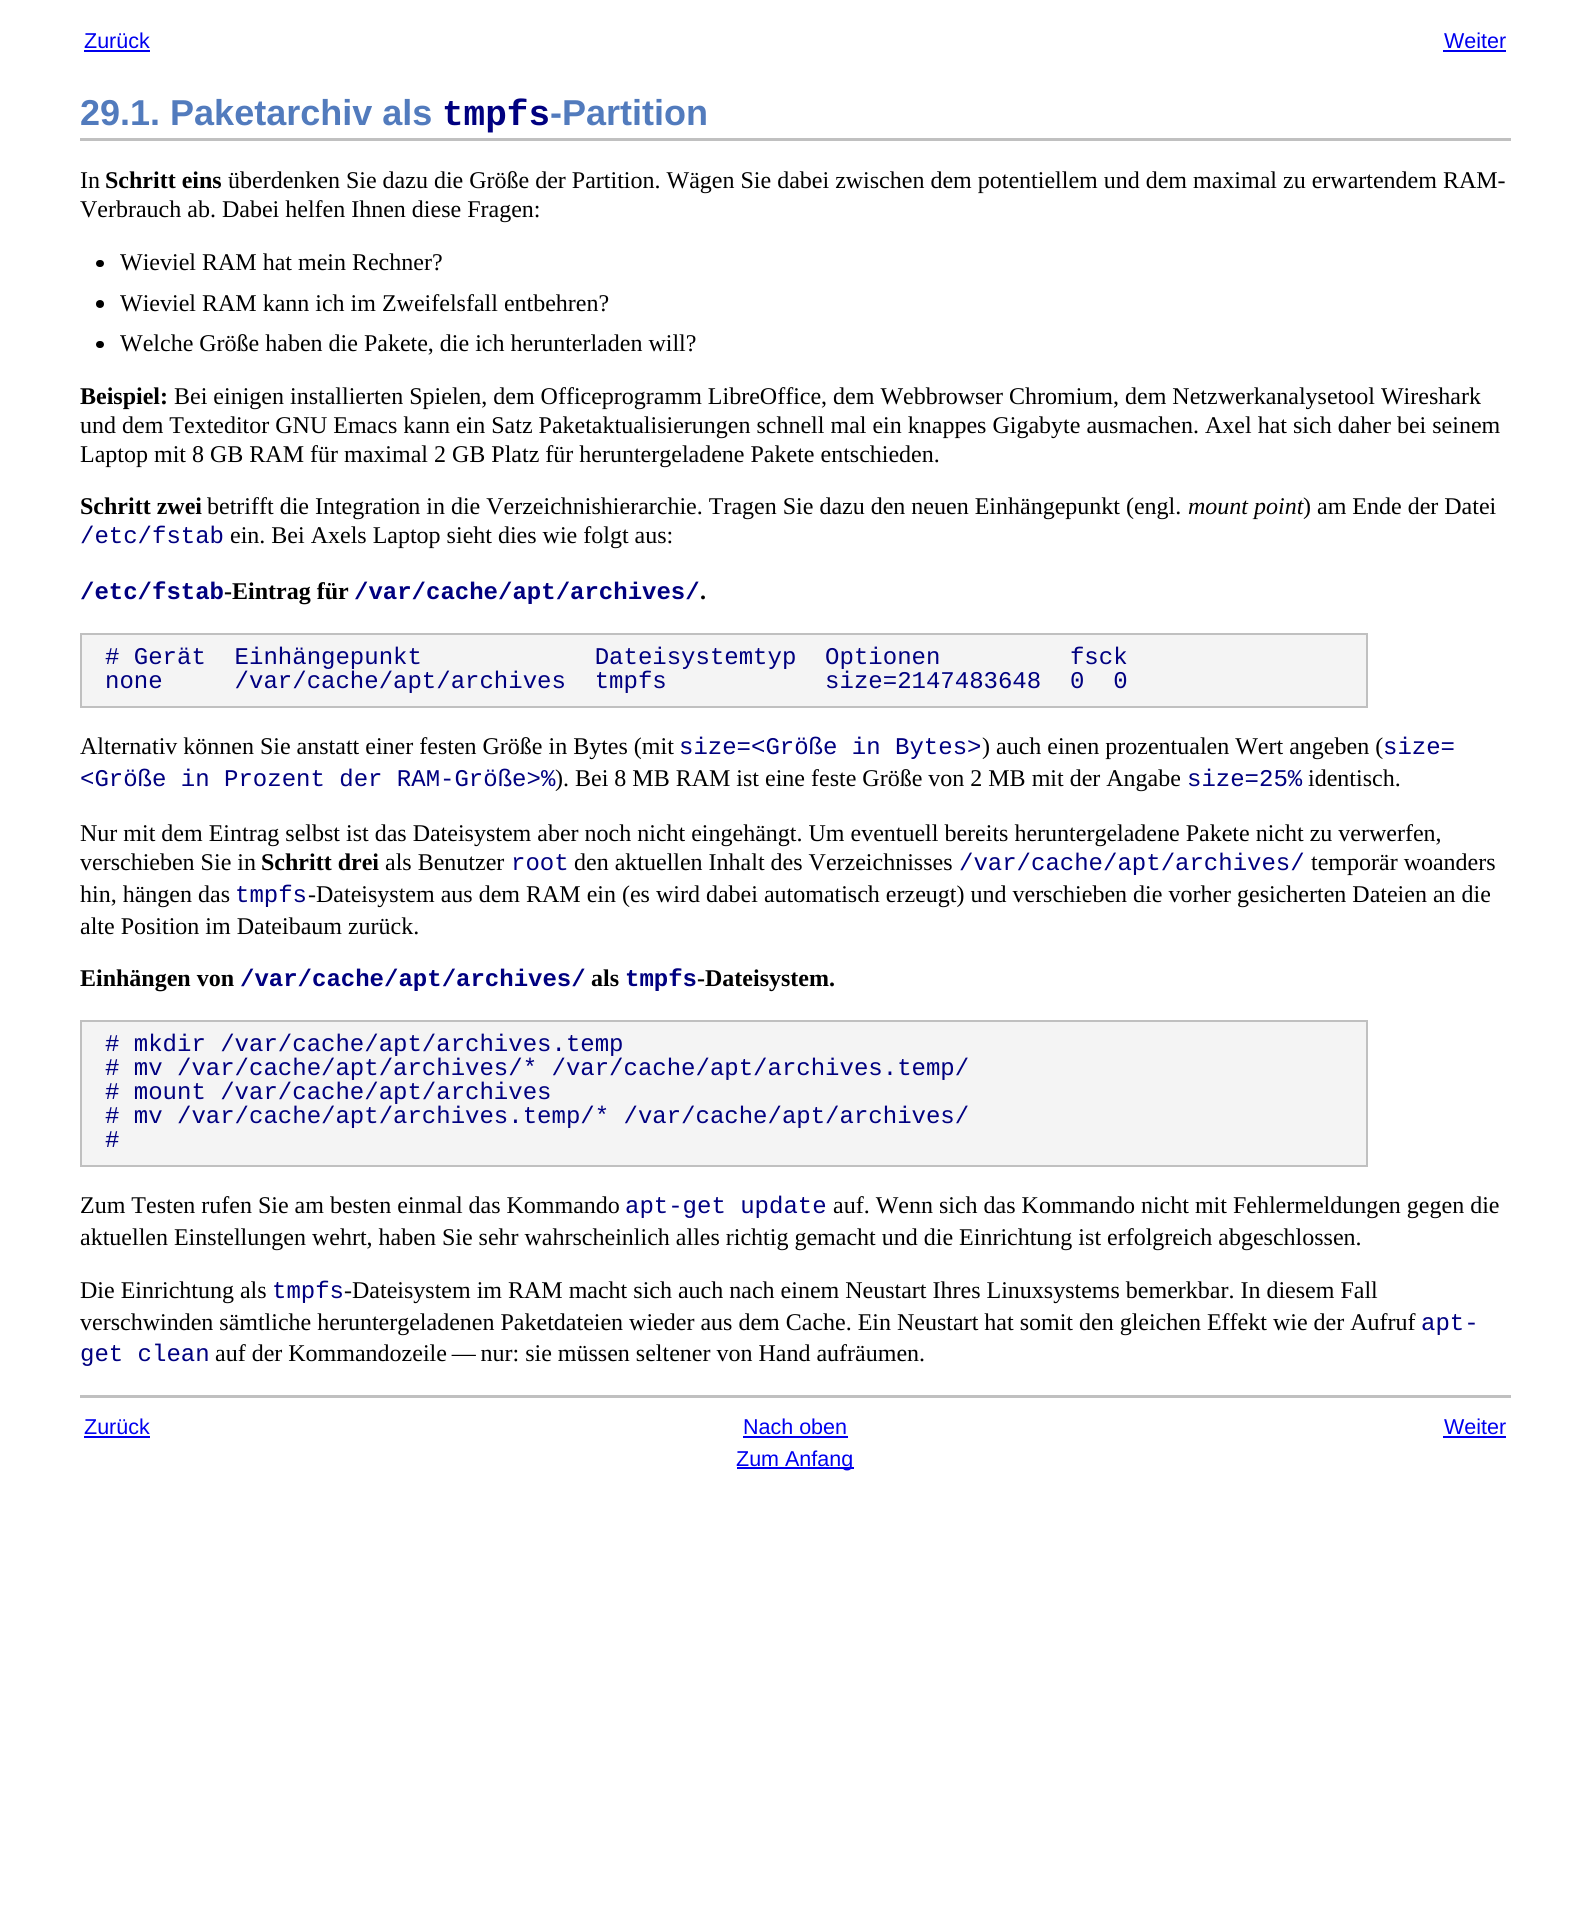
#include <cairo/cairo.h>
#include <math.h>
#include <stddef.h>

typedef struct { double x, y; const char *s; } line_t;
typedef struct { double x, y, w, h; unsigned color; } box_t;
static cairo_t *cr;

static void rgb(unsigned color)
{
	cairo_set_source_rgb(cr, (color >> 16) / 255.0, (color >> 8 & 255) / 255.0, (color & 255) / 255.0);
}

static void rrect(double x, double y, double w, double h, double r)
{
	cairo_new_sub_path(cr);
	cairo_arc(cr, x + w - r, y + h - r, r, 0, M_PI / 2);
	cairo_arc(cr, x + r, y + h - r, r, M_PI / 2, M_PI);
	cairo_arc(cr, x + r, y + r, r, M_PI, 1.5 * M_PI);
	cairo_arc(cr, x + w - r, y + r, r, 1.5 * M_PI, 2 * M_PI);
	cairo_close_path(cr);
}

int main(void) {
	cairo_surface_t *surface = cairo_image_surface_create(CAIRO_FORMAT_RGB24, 1590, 1925);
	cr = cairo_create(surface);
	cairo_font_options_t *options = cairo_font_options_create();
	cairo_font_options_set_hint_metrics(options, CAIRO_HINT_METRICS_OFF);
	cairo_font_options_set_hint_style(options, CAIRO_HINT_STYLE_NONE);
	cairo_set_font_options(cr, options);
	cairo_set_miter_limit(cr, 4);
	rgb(0xffffff);
	cairo_paint(cr);
	{
		static const box_t items[] = {
			{84, 50, 66, 2, 0x0000ee},
			{1443, 50, 63, 2, 0x0000ee},
			{80, 138, 1431, 3, 0xc0c0c0},
		};
		for (size_t i = 0; i < sizeof items / sizeof *items; i++) {
			rgb(items[i].color);
			cairo_rectangle(cr, items[i].x, items[i].y, items[i].w, items[i].h);
			cairo_fill(cr);
		}
	}
	rgb(0x000000);
	rrect(96, 260, 8, 7, 3.5);
	cairo_fill(cr);
	cairo_arc(cr, 100, 304, 4, 0, 2 * M_PI);
	cairo_fill(cr);
	rrect(96, 341, 8, 7, 3.5);
	cairo_fill(cr);
	rgb(0xf4f4f4);
	cairo_rectangle(cr, 81, 634, 1286, 73);
	cairo_fill_preserve(cr);
	rgb(0xc0c0c0);
	cairo_stroke(cr);
	rgb(0xf4f4f4);
	cairo_rectangle(cr, 81, 1021, 1286, 145);
	cairo_fill_preserve(cr);
	rgb(0xc0c0c0);
	cairo_stroke(cr);
	{
		static const box_t items[] = {
			{80, 1395, 1431, 3, 0xc0c0c0},
			{84, 1436, 66, 2, 0x0000ee},
			{743, 1436, 105, 2, 0x0000ee},
			{1443, 1436, 63, 2, 0x0000ee},
			{737, 1467, 117, 2, 0x0000ee},
		};
		for (size_t i = 0; i < sizeof items / sizeof *items; i++) {
			rgb(items[i].color);
			cairo_rectangle(cr, items[i].x, items[i].y, items[i].w, items[i].h);
			cairo_fill(cr);
		}
	}
	cairo_select_font_face(cr, "Liberation Sans", CAIRO_FONT_SLANT_NORMAL, CAIRO_FONT_WEIGHT_NORMAL);
	cairo_set_font_size(cr, 21.5);
	cairo_move_to(cr, 84, 48);
	cairo_show_text(cr, "Zurück");
	cairo_move_to(cr, 1444, 48);
	cairo_show_text(cr, "Weiter");
	cairo_select_font_face(cr, "Liberation Sans", CAIRO_FONT_SLANT_NORMAL, CAIRO_FONT_WEIGHT_BOLD);
	cairo_set_font_size(cr, 36);
	rgb(0x527bbd);
	cairo_move_to(cr, 80, 125);
	cairo_show_text(cr, "29.1. Paketarchiv als");
	cairo_select_font_face(cr, "Liberation Mono", CAIRO_FONT_SLANT_NORMAL, CAIRO_FONT_WEIGHT_BOLD);
	rgb(0x000080);
	cairo_move_to(cr, 442, 125);
	cairo_show_text(cr, "tmpfs");
	cairo_select_font_face(cr, "Liberation Sans", CAIRO_FONT_SLANT_NORMAL, CAIRO_FONT_WEIGHT_BOLD);
	rgb(0x527bbd);
	cairo_move_to(cr, 550, 125);
	cairo_show_text(cr, "-Partition");
	cairo_select_font_face(cr, "Liberation Serif", CAIRO_FONT_SLANT_NORMAL, CAIRO_FONT_WEIGHT_NORMAL);
	cairo_set_font_size(cr, 24);
	rgb(0x000000);
	cairo_move_to(cr, 80, 188);
	cairo_show_text(cr, "In");
	cairo_select_font_face(cr, "Liberation Serif", CAIRO_FONT_SLANT_NORMAL, CAIRO_FONT_WEIGHT_BOLD);
	cairo_move_to(cr, 105, 188);
	cairo_show_text(cr, "Schritt eins");
	cairo_select_font_face(cr, "Liberation Serif", CAIRO_FONT_SLANT_NORMAL, CAIRO_FONT_WEIGHT_NORMAL);
	{
		static const line_t items[] = {
			{228, 188, "überdenken Sie dazu die Größe der Partition. Wägen Sie dabei zwischen dem potentiellem und dem maximal zu erwartendem RAM-"},
			{80, 217, "Verbrauch ab. Dabei helfen Ihnen diese Fragen:"},
			{120, 270, "Wieviel RAM hat mein Rechner?"},
			{120, 311, "Wieviel RAM kann ich im Zweifelsfall entbehren?"},
			{120, 351, "Welche Größe haben die Pakete, die ich herunterladen will?"},
		};
		for (size_t i = 0; i < sizeof items / sizeof *items; i++) {
			cairo_move_to(cr, items[i].x, items[i].y);
			cairo_show_text(cr, items[i].s);
		}
	}
	cairo_select_font_face(cr, "Liberation Serif", CAIRO_FONT_SLANT_NORMAL, CAIRO_FONT_WEIGHT_BOLD);
	cairo_move_to(cr, 80, 404);
	cairo_show_text(cr, "Beispiel:");
	cairo_select_font_face(cr, "Liberation Serif", CAIRO_FONT_SLANT_NORMAL, CAIRO_FONT_WEIGHT_NORMAL);
	{
		static const line_t items[] = {
			{174, 404, "Bei einigen installierten Spielen, dem Officeprogramm LibreOffice, dem Webbrowser Chromium, dem Netzwerkanalysetool Wireshark"},
			{80, 433, "und dem Texteditor GNU Emacs kann ein Satz Paketaktualisierungen schnell mal ein knappes Gigabyte ausmachen. Axel hat sich daher bei seinem"},
			{80, 462, "Laptop mit 8 GB RAM für maximal 2 GB Platz für heruntergeladene Pakete entschieden."},
		};
		for (size_t i = 0; i < sizeof items / sizeof *items; i++) {
			cairo_move_to(cr, items[i].x, items[i].y);
			cairo_show_text(cr, items[i].s);
		}
	}
	cairo_select_font_face(cr, "Liberation Serif", CAIRO_FONT_SLANT_NORMAL, CAIRO_FONT_WEIGHT_BOLD);
	cairo_move_to(cr, 80, 514);
	cairo_show_text(cr, "Schritt zwei");
	cairo_select_font_face(cr, "Liberation Serif", CAIRO_FONT_SLANT_NORMAL, CAIRO_FONT_WEIGHT_NORMAL);
	cairo_move_to(cr, 207, 514);
	cairo_show_text(cr, "betrifft die Integration in die Verzeichnishierarchie. Tragen Sie dazu den neuen Einhängepunkt (engl.");
	cairo_select_font_face(cr, "Liberation Serif", CAIRO_FONT_SLANT_ITALIC, CAIRO_FONT_WEIGHT_NORMAL);
	cairo_move_to(cr, 1188, 514);
	cairo_show_text(cr, "mount point");
	cairo_select_font_face(cr, "Liberation Serif", CAIRO_FONT_SLANT_NORMAL, CAIRO_FONT_WEIGHT_NORMAL);
	cairo_move_to(cr, 1303, 514);
	cairo_show_text(cr, ") am Ende der Datei");
	cairo_select_font_face(cr, "Liberation Mono", CAIRO_FONT_SLANT_NORMAL, CAIRO_FONT_WEIGHT_NORMAL);
	rgb(0x000080);
	cairo_move_to(cr, 80, 543);
	cairo_show_text(cr, "/etc/fstab");
	cairo_select_font_face(cr, "Liberation Serif", CAIRO_FONT_SLANT_NORMAL, CAIRO_FONT_WEIGHT_NORMAL);
	rgb(0x000000);
	cairo_move_to(cr, 230, 543);
	cairo_show_text(cr, "ein. Bei Axels Laptop sieht dies wie folgt aus:");
	cairo_select_font_face(cr, "Liberation Mono", CAIRO_FONT_SLANT_NORMAL, CAIRO_FONT_WEIGHT_BOLD);
	rgb(0x000080);
	cairo_move_to(cr, 80, 599);
	cairo_show_text(cr, "/etc/fstab");
	cairo_select_font_face(cr, "Liberation Serif", CAIRO_FONT_SLANT_NORMAL, CAIRO_FONT_WEIGHT_BOLD);
	rgb(0x000000);
	cairo_move_to(cr, 224, 599);
	cairo_show_text(cr, "-Eintrag für");
	cairo_select_font_face(cr, "Liberation Mono", CAIRO_FONT_SLANT_NORMAL, CAIRO_FONT_WEIGHT_BOLD);
	rgb(0x000080);
	cairo_move_to(cr, 354, 599);
	cairo_show_text(cr, "/var/cache/apt/archives/");
	cairo_select_font_face(cr, "Liberation Serif", CAIRO_FONT_SLANT_NORMAL, CAIRO_FONT_WEIGHT_BOLD);
	rgb(0x000000);
	cairo_move_to(cr, 700, 599);
	cairo_show_text(cr, ".");
	cairo_select_font_face(cr, "Liberation Mono", CAIRO_FONT_SLANT_NORMAL, CAIRO_FONT_WEIGHT_NORMAL);
	rgb(0x000080);
	cairo_move_to(cr, 105, 664);
	cairo_show_text(cr, "# Gerät  Einhängepunkt            Dateisystemtyp  Optionen         fsck");
	cairo_move_to(cr, 105, 688);
	cairo_show_text(cr, "none     /var/cache/apt/archives  tmpfs           size=2147483648  0  0");
	cairo_select_font_face(cr, "Liberation Serif", CAIRO_FONT_SLANT_NORMAL, CAIRO_FONT_WEIGHT_NORMAL);
	rgb(0x000000);
	cairo_move_to(cr, 80, 754);
	cairo_show_text(cr, "Alternativ können Sie anstatt einer festen Größe in Bytes (mit");
	cairo_select_font_face(cr, "Liberation Mono", CAIRO_FONT_SLANT_NORMAL, CAIRO_FONT_WEIGHT_NORMAL);
	rgb(0x000080);
	cairo_move_to(cr, 679, 754);
	cairo_show_text(cr, "size=<Größe in Bytes>");
	cairo_select_font_face(cr, "Liberation Serif", CAIRO_FONT_SLANT_NORMAL, CAIRO_FONT_WEIGHT_NORMAL);
	rgb(0x000000);
	cairo_move_to(cr, 982, 754);
	cairo_show_text(cr, ") auch einen prozentualen Wert angeben (");
	cairo_select_font_face(cr, "Liberation Mono", CAIRO_FONT_SLANT_NORMAL, CAIRO_FONT_WEIGHT_NORMAL);
	rgb(0x000080);
	cairo_move_to(cr, 1383, 754);
	cairo_show_text(cr, "size=");
	cairo_move_to(cr, 80, 786);
	cairo_show_text(cr, "<Größe in Prozent der RAM-Größe>%");
	cairo_select_font_face(cr, "Liberation Serif", CAIRO_FONT_SLANT_NORMAL, CAIRO_FONT_WEIGHT_NORMAL);
	rgb(0x000000);
	cairo_move_to(cr, 555, 786);
	cairo_show_text(cr, "). Bei 8 MB RAM ist eine feste Größe von 2 MB mit der Angabe");
	cairo_select_font_face(cr, "Liberation Mono", CAIRO_FONT_SLANT_NORMAL, CAIRO_FONT_WEIGHT_NORMAL);
	rgb(0x000080);
	cairo_move_to(cr, 1187, 786);
	cairo_show_text(cr, "size=25%");
	cairo_select_font_face(cr, "Liberation Serif", CAIRO_FONT_SLANT_NORMAL, CAIRO_FONT_WEIGHT_NORMAL);
	rgb(0x000000);
	{
		static const line_t items[] = {
			{1308, 786, "identisch."},
			{80, 841, "Nur mit dem Eintrag selbst ist das Dateisystem aber noch nicht eingehängt. Um eventuell bereits heruntergeladene Pakete nicht zu verwerfen,"},
			{80, 870, "verschieben Sie in"},
		};
		for (size_t i = 0; i < sizeof items / sizeof *items; i++) {
			cairo_move_to(cr, items[i].x, items[i].y);
			cairo_show_text(cr, items[i].s);
		}
	}
	cairo_select_font_face(cr, "Liberation Serif", CAIRO_FONT_SLANT_NORMAL, CAIRO_FONT_WEIGHT_BOLD);
	cairo_move_to(cr, 261, 870);
	cairo_show_text(cr, "Schritt drei");
	cairo_select_font_face(cr, "Liberation Serif", CAIRO_FONT_SLANT_NORMAL, CAIRO_FONT_WEIGHT_NORMAL);
	cairo_move_to(cr, 385, 870);
	cairo_show_text(cr, "als Benutzer");
	cairo_select_font_face(cr, "Liberation Mono", CAIRO_FONT_SLANT_NORMAL, CAIRO_FONT_WEIGHT_NORMAL);
	rgb(0x000080);
	cairo_move_to(cr, 511, 870);
	cairo_show_text(cr, "root");
	cairo_select_font_face(cr, "Liberation Serif", CAIRO_FONT_SLANT_NORMAL, CAIRO_FONT_WEIGHT_NORMAL);
	rgb(0x000000);
	cairo_move_to(cr, 574, 870);
	cairo_show_text(cr, "den aktuellen Inhalt des Verzeichnisses");
	cairo_select_font_face(cr, "Liberation Mono", CAIRO_FONT_SLANT_NORMAL, CAIRO_FONT_WEIGHT_NORMAL);
	rgb(0x000080);
	cairo_move_to(cr, 959, 870);
	cairo_show_text(cr, "/var/cache/apt/archives/");
	cairo_select_font_face(cr, "Liberation Serif", CAIRO_FONT_SLANT_NORMAL, CAIRO_FONT_WEIGHT_NORMAL);
	rgb(0x000000);
	cairo_move_to(cr, 1311, 870);
	cairo_show_text(cr, "temporär woanders");
	cairo_move_to(cr, 80, 902);
	cairo_show_text(cr, "hin, hängen das");
	cairo_select_font_face(cr, "Liberation Mono", CAIRO_FONT_SLANT_NORMAL, CAIRO_FONT_WEIGHT_NORMAL);
	rgb(0x000080);
	cairo_move_to(cr, 235, 902);
	cairo_show_text(cr, "tmpfs");
	cairo_select_font_face(cr, "Liberation Serif", CAIRO_FONT_SLANT_NORMAL, CAIRO_FONT_WEIGHT_NORMAL);
	rgb(0x000000);
	cairo_move_to(cr, 308, 902);
	cairo_show_text(cr, "-Dateisystem aus dem RAM ein (es wird dabei automatisch erzeugt) und verschieben die vorher gesicherten Dateien an die");
	cairo_move_to(cr, 80, 934);
	cairo_show_text(cr, "alte Position im Dateibaum zurück.");
	cairo_select_font_face(cr, "Liberation Serif", CAIRO_FONT_SLANT_NORMAL, CAIRO_FONT_WEIGHT_BOLD);
	cairo_move_to(cr, 80, 986);
	cairo_show_text(cr, "Einhängen von");
	cairo_select_font_face(cr, "Liberation Mono", CAIRO_FONT_SLANT_NORMAL, CAIRO_FONT_WEIGHT_BOLD);
	rgb(0x000080);
	cairo_move_to(cr, 240, 986);
	cairo_show_text(cr, "/var/cache/apt/archives/");
	cairo_select_font_face(cr, "Liberation Serif", CAIRO_FONT_SLANT_NORMAL, CAIRO_FONT_WEIGHT_BOLD);
	rgb(0x000000);
	cairo_move_to(cr, 591, 986);
	cairo_show_text(cr, "als");
	cairo_select_font_face(cr, "Liberation Mono", CAIRO_FONT_SLANT_NORMAL, CAIRO_FONT_WEIGHT_BOLD);
	rgb(0x000080);
	cairo_move_to(cr, 625, 986);
	cairo_show_text(cr, "tmpfs");
	cairo_select_font_face(cr, "Liberation Serif", CAIRO_FONT_SLANT_NORMAL, CAIRO_FONT_WEIGHT_BOLD);
	rgb(0x000000);
	cairo_move_to(cr, 697, 986);
	cairo_show_text(cr, "-Dateisystem.");
	cairo_select_font_face(cr, "Liberation Mono", CAIRO_FONT_SLANT_NORMAL, CAIRO_FONT_WEIGHT_NORMAL);
	rgb(0x000080);
	{
		static const line_t items[] = {
			{105, 1051, "# mkdir /var/cache/apt/archives.temp"},
			{105, 1075, "# mv /var/cache/apt/archives/* /var/cache/apt/archives.temp/"},
			{105, 1099, "# mount /var/cache/apt/archives"},
			{105, 1123, "# mv /var/cache/apt/archives.temp/* /var/cache/apt/archives/"},
			{105, 1147, "#"},
		};
		for (size_t i = 0; i < sizeof items / sizeof *items; i++) {
			cairo_move_to(cr, items[i].x, items[i].y);
			cairo_show_text(cr, items[i].s);
		}
	}
	cairo_select_font_face(cr, "Liberation Serif", CAIRO_FONT_SLANT_NORMAL, CAIRO_FONT_WEIGHT_NORMAL);
	rgb(0x000000);
	cairo_move_to(cr, 80, 1213);
	cairo_show_text(cr, "Zum Testen rufen Sie am besten einmal das Kommando");
	cairo_select_font_face(cr, "Liberation Mono", CAIRO_FONT_SLANT_NORMAL, CAIRO_FONT_WEIGHT_NORMAL);
	rgb(0x000080);
	cairo_move_to(cr, 625, 1213);
	cairo_show_text(cr, "apt-get update");
	cairo_select_font_face(cr, "Liberation Serif", CAIRO_FONT_SLANT_NORMAL, CAIRO_FONT_WEIGHT_NORMAL);
	rgb(0x000000);
	{
		static const line_t items[] = {
			{833, 1213, "auf. Wenn sich das Kommando nicht mit Fehlermeldungen gegen die"},
			{80, 1245, "aktuellen Einstellungen wehrt, haben Sie sehr wahrscheinlich alles richtig gemacht und die Einrichtung ist erfolgreich abgeschlossen."},
			{80, 1298, "Die Einrichtung als"},
		};
		for (size_t i = 0; i < sizeof items / sizeof *items; i++) {
			cairo_move_to(cr, items[i].x, items[i].y);
			cairo_show_text(cr, items[i].s);
		}
	}
	cairo_select_font_face(cr, "Liberation Mono", CAIRO_FONT_SLANT_NORMAL, CAIRO_FONT_WEIGHT_NORMAL);
	rgb(0x000080);
	cairo_move_to(cr, 272, 1298);
	cairo_show_text(cr, "tmpfs");
	cairo_select_font_face(cr, "Liberation Serif", CAIRO_FONT_SLANT_NORMAL, CAIRO_FONT_WEIGHT_NORMAL);
	rgb(0x000000);
	cairo_move_to(cr, 344, 1298);
	cairo_show_text(cr, "-Dateisystem im RAM macht sich auch nach einem Neustart Ihres Linuxsystems bemerkbar. In diesem Fall");
	cairo_move_to(cr, 80, 1330);
	cairo_show_text(cr, "verschwinden sämtliche heruntergeladenen Paketdateien wieder aus dem Cache. Ein Neustart hat somit den gleichen Effekt wie der Aufruf");
	cairo_select_font_face(cr, "Liberation Mono", CAIRO_FONT_SLANT_NORMAL, CAIRO_FONT_WEIGHT_NORMAL);
	rgb(0x000080);
	cairo_move_to(cr, 1421, 1330);
	cairo_show_text(cr, "apt-");
	cairo_move_to(cr, 80, 1361);
	cairo_show_text(cr, "get clean");
	cairo_select_font_face(cr, "Liberation Serif", CAIRO_FONT_SLANT_NORMAL, CAIRO_FONT_WEIGHT_NORMAL);
	rgb(0x000000);
	cairo_move_to(cr, 215, 1361);
	cairo_show_text(cr, "auf der Kommandozeile — nur: sie müssen seltener von Hand aufräumen.");
	cairo_select_font_face(cr, "Liberation Sans", CAIRO_FONT_SLANT_NORMAL, CAIRO_FONT_WEIGHT_NORMAL);
	cairo_set_font_size(cr, 21.5);
	rgb(0x0000ee);
	{
		static const line_t items[] = {
			{84, 1434, "Zurück"},
			{743, 1434, "Nach oben"},
			{1444, 1434, "Weiter"},
			{736, 1466, "Zum Anfang"},
		};
		for (size_t i = 0; i < sizeof items / sizeof *items; i++) {
			cairo_move_to(cr, items[i].x, items[i].y);
			cairo_show_text(cr, items[i].s);
		}
	}
	cairo_surface_write_to_png(surface, "page.png");
	cairo_font_options_destroy(options);
	cairo_destroy(cr);
	cairo_surface_destroy(surface);
	return 0;
}
